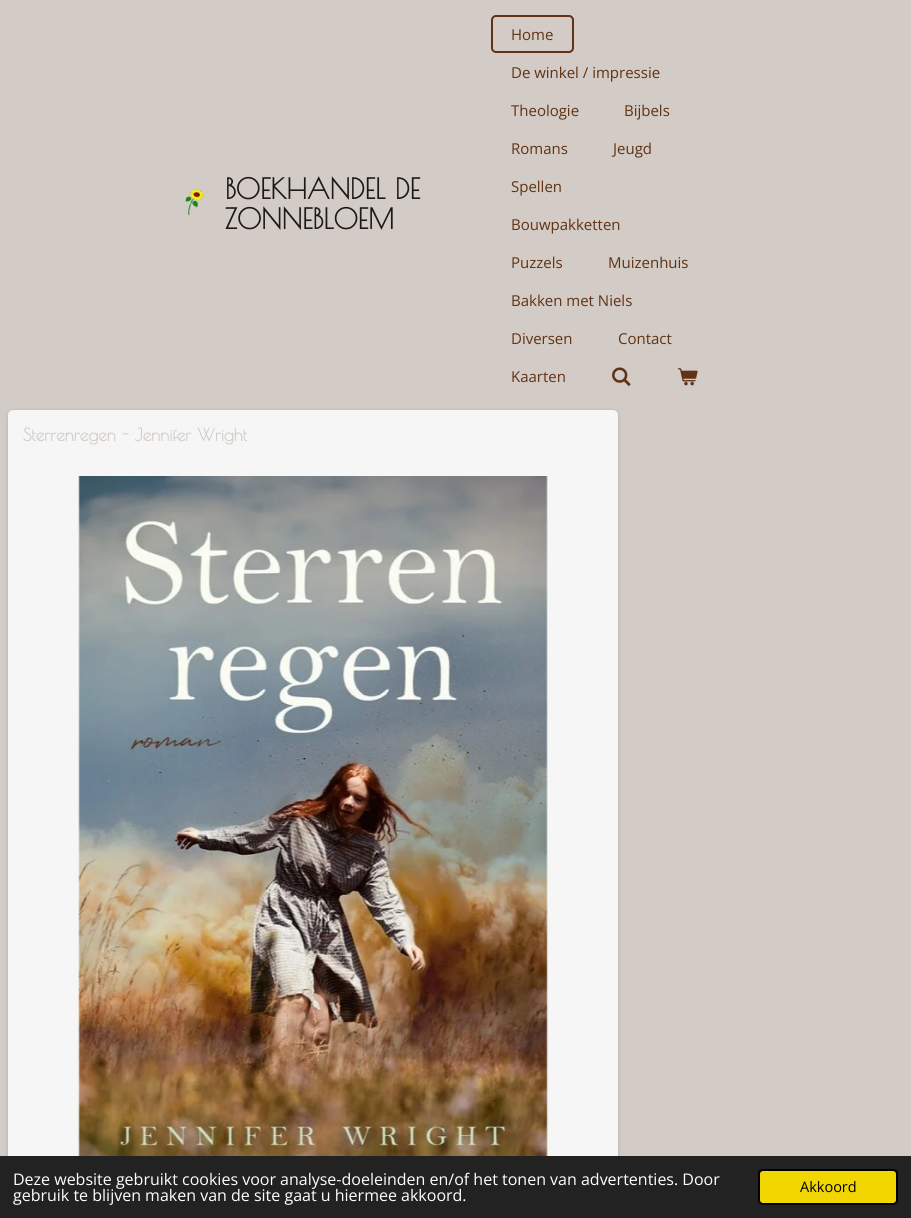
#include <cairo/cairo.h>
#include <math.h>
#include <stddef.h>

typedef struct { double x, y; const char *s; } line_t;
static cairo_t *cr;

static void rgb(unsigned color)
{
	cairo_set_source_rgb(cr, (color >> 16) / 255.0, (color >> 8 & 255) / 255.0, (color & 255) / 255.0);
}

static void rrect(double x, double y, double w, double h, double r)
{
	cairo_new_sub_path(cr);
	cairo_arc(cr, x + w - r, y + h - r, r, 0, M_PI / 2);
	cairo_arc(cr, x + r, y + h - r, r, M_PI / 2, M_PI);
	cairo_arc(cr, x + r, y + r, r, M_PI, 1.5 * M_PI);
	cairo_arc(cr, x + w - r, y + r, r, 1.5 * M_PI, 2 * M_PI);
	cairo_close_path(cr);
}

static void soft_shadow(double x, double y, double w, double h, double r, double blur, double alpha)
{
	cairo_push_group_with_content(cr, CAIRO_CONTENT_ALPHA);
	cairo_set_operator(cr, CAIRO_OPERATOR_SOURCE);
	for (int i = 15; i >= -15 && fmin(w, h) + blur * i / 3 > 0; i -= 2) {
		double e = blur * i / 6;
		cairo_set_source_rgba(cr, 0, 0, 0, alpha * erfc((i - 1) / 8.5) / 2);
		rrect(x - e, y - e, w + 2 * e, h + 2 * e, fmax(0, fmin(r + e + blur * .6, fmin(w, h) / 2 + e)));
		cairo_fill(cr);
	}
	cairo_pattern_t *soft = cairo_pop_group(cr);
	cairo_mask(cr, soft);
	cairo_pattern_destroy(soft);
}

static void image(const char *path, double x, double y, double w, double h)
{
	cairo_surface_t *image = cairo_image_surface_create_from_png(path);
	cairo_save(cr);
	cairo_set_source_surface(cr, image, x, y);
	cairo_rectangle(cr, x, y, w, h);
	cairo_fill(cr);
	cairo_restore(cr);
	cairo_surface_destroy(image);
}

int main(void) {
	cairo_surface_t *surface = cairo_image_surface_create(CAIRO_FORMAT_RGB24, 911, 1218);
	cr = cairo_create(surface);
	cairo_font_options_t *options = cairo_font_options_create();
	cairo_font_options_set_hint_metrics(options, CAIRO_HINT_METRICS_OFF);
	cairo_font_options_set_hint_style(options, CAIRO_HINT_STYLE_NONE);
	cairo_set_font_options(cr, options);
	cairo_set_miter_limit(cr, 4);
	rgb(0xd2cbc6);
	cairo_paint(cr);
	image("img/1.png", 185, 189, 19, 26);
	rrect(492, 16, 81, 36, 4);
	rgb(0x613213);
	cairo_stroke(cr);
	image("img/2.png", 612, 367, 19, 20);
	image("img/3.png", 678, 368, 20, 18);
	rgb(0x000000);
	soft_shadow(8, 410, 610, 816, 5, 1, 0.1);
	soft_shadow(8, 412, 610, 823, 5, 4, 0.07);
	rgb(0xf6f6f6);
	rrect(8, 410, 610, 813, 5);
	cairo_fill(cr);
	image("img/4.png", 78, 476, 470, 680);
	rgb(0x222222);
	cairo_rectangle(cr, 0, 1156, 911, 62);
	cairo_fill(cr);
	rgb(0xf1d600);
	rrect(759, 1170, 138, 34, 4);
	cairo_fill_preserve(cr);
	rgb(0x000000);
	cairo_stroke(cr);
	cairo_select_font_face(cr, "Poiret One", CAIRO_FONT_SLANT_NORMAL, CAIRO_FONT_WEIGHT_BOLD);
	cairo_set_font_size(cr, 28);
	rgb(0x1d1917);
	cairo_move_to(cr, 225, 199);
	cairo_show_text(cr, "BOEKHANDEL DE");
	cairo_move_to(cr, 225, 229);
	cairo_show_text(cr, "ZONNEBLOEM");
	cairo_select_font_face(cr, "Open Sans", CAIRO_FONT_SLANT_NORMAL, CAIRO_FONT_WEIGHT_NORMAL);
	cairo_set_font_size(cr, 15);
	rgb(0x613213);
	{
		static const line_t items[] = {
			{511, 40, "Home"},
			{511, 78, "De winkel / impressie"},
			{511, 116, "Theologie"},
			{624, 116, "Bijbels"},
			{511, 154, "Romans"},
			{613, 154, "Jeugd"},
			{511, 192, "Spellen"},
			{511, 230, "Bouwpakketten"},
			{511, 268, "Puzzels"},
			{608, 268, "Muizenhuis"},
			{511, 306, "Bakken met Niels"},
			{511, 344, "Diversen"},
			{618, 344, "Contact"},
			{511, 382, "Kaarten"},
		};
		for (size_t i = 0; i < sizeof items / sizeof *items; i++) {
			cairo_move_to(cr, items[i].x, items[i].y);
			cairo_show_text(cr, items[i].s);
		}
	}
	cairo_select_font_face(cr, "Poiret One", CAIRO_FONT_SLANT_NORMAL, CAIRO_FONT_WEIGHT_BOLD);
	cairo_set_font_size(cr, 17.25);
	rgb(0xd2cbc6);
	cairo_move_to(cr, 23, 441);
	cairo_show_text(cr, "Sterrenregen - Jennifer Wright");
	cairo_select_font_face(cr, "Open Sans", CAIRO_FONT_SLANT_NORMAL, CAIRO_FONT_WEIGHT_NORMAL);
	cairo_set_font_size(cr, 16);
	rgb(0xffffff);
	cairo_move_to(cr, 13, 1185);
	cairo_show_text(cr, "Deze website gebruikt cookies voor analyse-doeleinden en/of het tonen van advertenties. Door");
	cairo_move_to(cr, 13, 1201);
	cairo_show_text(cr, "gebruik te blijven maken van de site gaat u hiermee akkoord.");
	cairo_set_font_size(cr, 14.5);
	rgb(0x000000);
	cairo_move_to(cr, 800, 1192);
	cairo_show_text(cr, "Akkoord");
	cairo_surface_write_to_png(surface, "page.png");
	cairo_font_options_destroy(options);
	cairo_destroy(cr);
	cairo_surface_destroy(surface);
	return 0;
}
